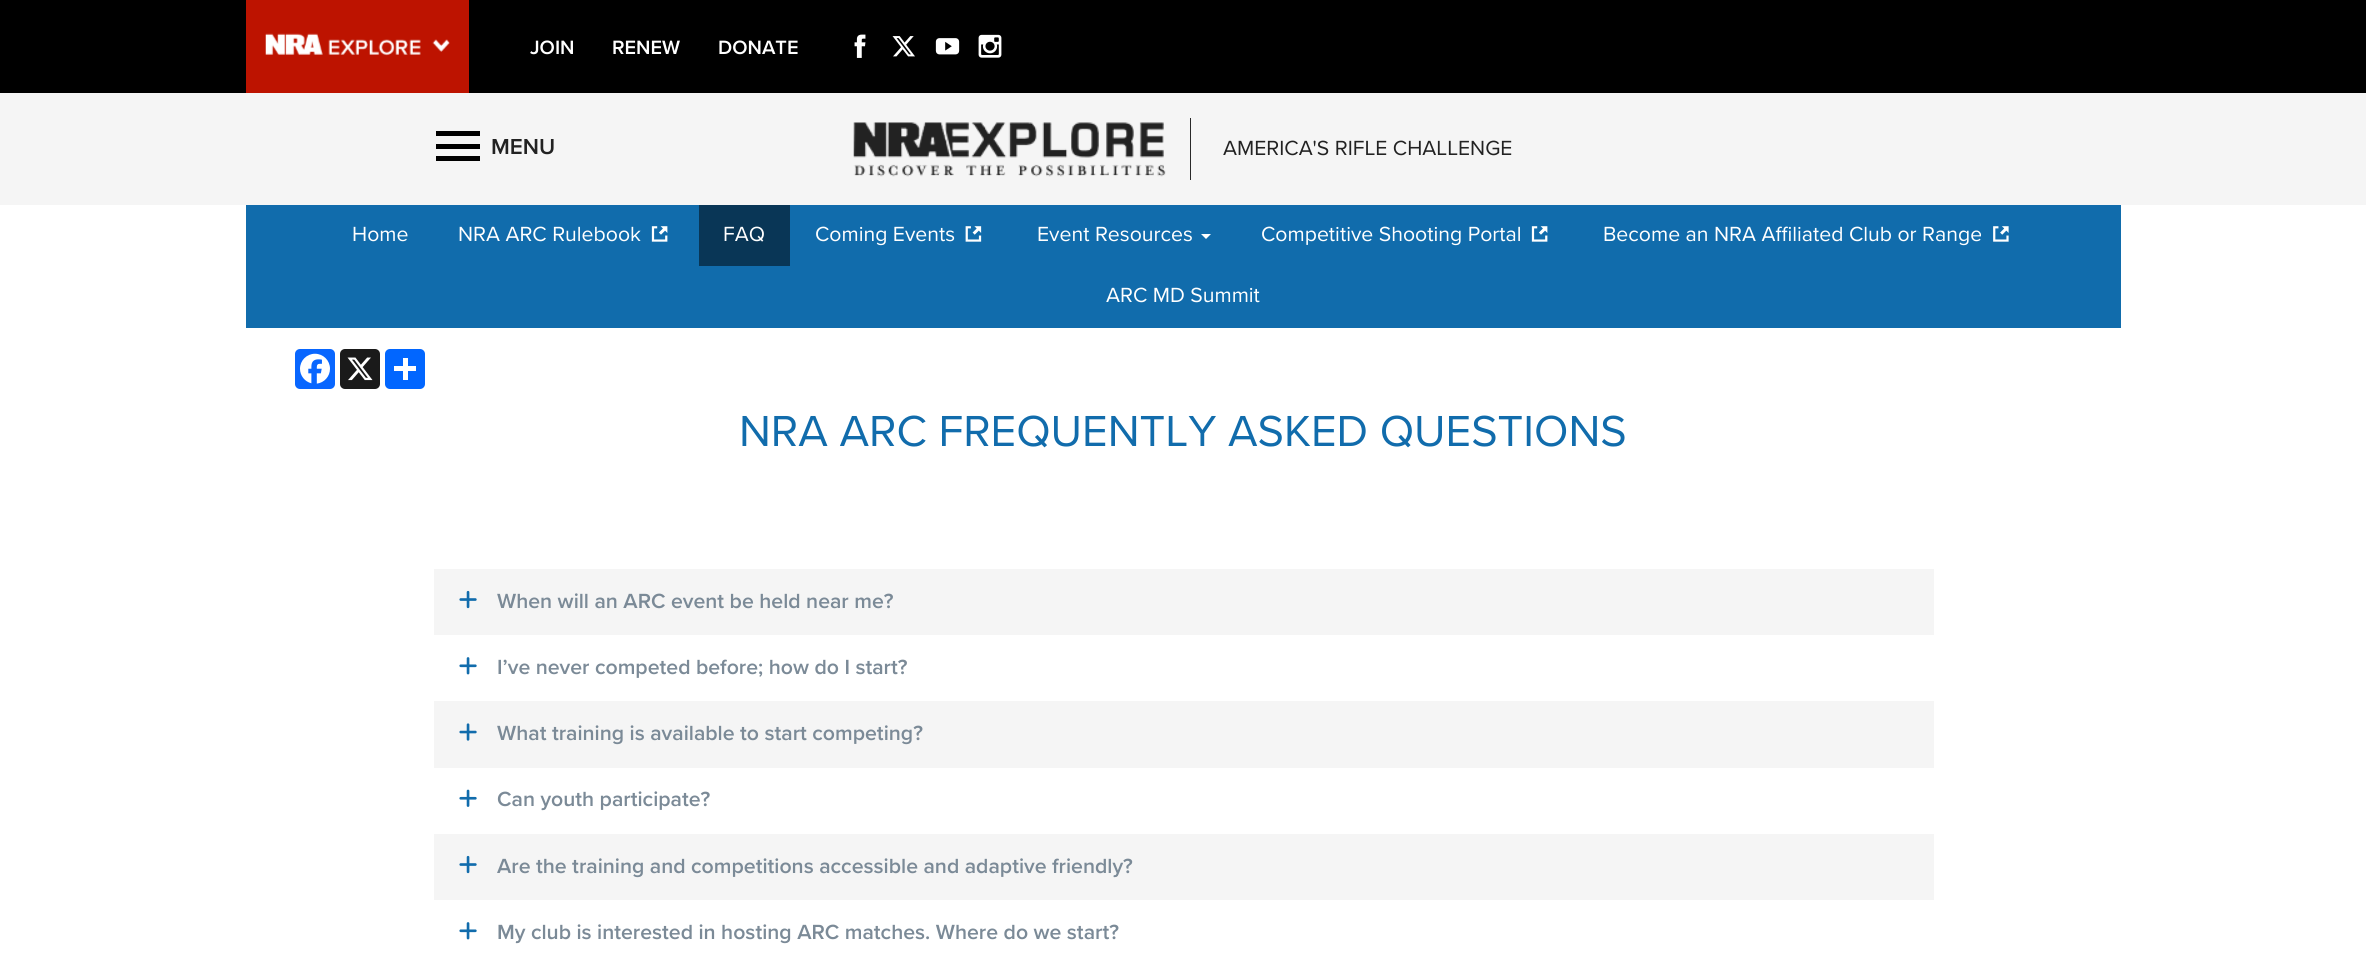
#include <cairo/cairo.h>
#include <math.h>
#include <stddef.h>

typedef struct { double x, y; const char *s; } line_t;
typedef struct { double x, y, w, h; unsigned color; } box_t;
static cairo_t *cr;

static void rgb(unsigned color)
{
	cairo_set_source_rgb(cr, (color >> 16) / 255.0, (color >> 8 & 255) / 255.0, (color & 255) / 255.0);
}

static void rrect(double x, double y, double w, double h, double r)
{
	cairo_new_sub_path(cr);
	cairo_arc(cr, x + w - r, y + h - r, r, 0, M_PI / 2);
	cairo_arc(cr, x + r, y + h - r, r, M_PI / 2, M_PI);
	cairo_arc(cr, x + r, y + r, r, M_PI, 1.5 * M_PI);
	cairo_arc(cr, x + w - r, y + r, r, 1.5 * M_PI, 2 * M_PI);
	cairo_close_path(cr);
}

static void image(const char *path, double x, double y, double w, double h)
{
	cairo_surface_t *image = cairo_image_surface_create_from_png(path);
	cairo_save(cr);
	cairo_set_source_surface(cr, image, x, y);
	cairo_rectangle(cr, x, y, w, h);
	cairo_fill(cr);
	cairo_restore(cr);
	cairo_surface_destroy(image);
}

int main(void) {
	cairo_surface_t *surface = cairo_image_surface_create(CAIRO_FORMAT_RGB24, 2366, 960);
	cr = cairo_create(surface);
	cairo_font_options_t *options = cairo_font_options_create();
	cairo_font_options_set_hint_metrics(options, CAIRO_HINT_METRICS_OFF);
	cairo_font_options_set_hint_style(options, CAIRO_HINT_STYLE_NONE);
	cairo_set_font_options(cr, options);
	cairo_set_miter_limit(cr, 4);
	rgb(0xffffff);
	cairo_paint(cr);
	rgb(0x000000);
	cairo_rectangle(cr, 0, 0, 2366, 93);
	cairo_fill(cr);
	rgb(0xbd1300);
	cairo_rectangle(cr, 246, 0, 223, 93);
	cairo_fill(cr);
	image("img/1.png", 265, 33, 185, 23);
	image("img/2.png", 854, 34, 12, 24);
	image("img/3.png", 892, 36, 23, 21);
	image("img/4.png", 935, 38, 25, 17);
	image("img/5.png", 978, 34, 24, 24);
	{
		static const box_t items[] = {
			{0, 93, 2366, 112, 0xf5f5f5},
			{436, 144, 44, 5, 0x000000},
			{436, 131, 44, 5, 0x000000},
			{436, 156, 44, 5, 0x000000},
			{1190, 118, 1, 62, 0x292929},
		};
		for (size_t i = 0; i < sizeof items / sizeof *items; i++) {
			rgb(items[i].color);
			cairo_rectangle(cr, items[i].x, items[i].y, items[i].w, items[i].h);
			cairo_fill(cr);
		}
	}
	image("img/6.png", 853, 122, 313, 55);
	rgb(0x116cac);
	cairo_rectangle(cr, 246, 205, 1875, 123);
	cairo_fill(cr);
	image("img/7.png", 651, 226, 17, 16);
	rgb(0x093656);
	cairo_rectangle(cr, 699, 205, 91, 61);
	cairo_fill(cr);
	image("img/8.png", 965, 226, 17, 16);
	rgb(0xffffff);
	cairo_new_path(cr);
	cairo_move_to(cr, 1201, 234);
	cairo_line_to(cr, 1211, 234);
	cairo_line_to(cr, 1206, 239);
	cairo_close_path(cr);
	cairo_fill(cr);
	image("img/7.png", 1531, 226, 17, 16);
	image("img/9.png", 1993, 226, 16, 16);
	rgb(0x0866ff);
	rrect(295, 349, 40, 40, 5);
	cairo_fill(cr);
	image("img/10.png", 300, 353, 30, 31);
	rgb(0x1a1a1a);
	rrect(340, 349, 40, 40, 5);
	cairo_fill(cr);
	image("img/11.png", 347, 357, 26, 24);
	rgb(0x0166ff);
	rrect(385, 349, 40, 40, 5);
	cairo_fill(cr);
	{
		static const box_t items[] = {
			{403, 358, 5, 22, 0xffffff},
			{394, 366, 22, 5, 0xffffff},
			{434, 569, 1500, 66, 0xf5f5f5},
		};
		for (size_t i = 0; i < sizeof items / sizeof *items; i++) {
			rgb(items[i].color);
			cairo_rectangle(cr, items[i].x, items[i].y, items[i].w, items[i].h);
			cairo_fill(cr);
		}
	}
	image("img/12.png", 459, 590, 18, 19);
	image("img/13.png", 459, 657, 18, 18);
	cairo_rectangle(cr, 434, 701, 1500, 67);
	cairo_fill(cr);
	image("img/14.png", 459, 723, 18, 18);
	image("img/15.png", 459, 789, 18, 18);
	cairo_rectangle(cr, 434, 834, 1500, 66);
	cairo_fill(cr);
	image("img/12.png", 459, 855, 18, 19);
	image("img/13.png", 459, 922, 18, 18);
	cairo_select_font_face(cr, "Proxima Nova SemiBold", CAIRO_FONT_SLANT_NORMAL, CAIRO_FONT_WEIGHT_NORMAL);
	cairo_set_font_size(cr, 20);
	rgb(0xffffff);
	{
		static const line_t items[] = {
			{530, 54, "JOIN"},
			{612, 54, "RENEW"},
			{718, 54, "DONATE"},
		};
		for (size_t i = 0; i < sizeof items / sizeof *items; i++) {
			cairo_move_to(cr, items[i].x, items[i].y);
			cairo_show_text(cr, items[i].s);
		}
	}
	cairo_set_font_size(cr, 22.5);
	rgb(0x222222);
	cairo_move_to(cr, 491, 154);
	cairo_show_text(cr, "MENU");
	cairo_select_font_face(cr, "Proxima Nova", CAIRO_FONT_SLANT_NORMAL, CAIRO_FONT_WEIGHT_NORMAL);
	cairo_set_font_size(cr, 21.25);
	cairo_move_to(cr, 1223, 155);
	cairo_show_text(cr, "AMERICA'S RIFLE CHALLENGE");
	rgb(0xffffff);
	{
		static const line_t items[] = {
			{352, 241, "Home"},
			{458, 241, "NRA ARC Rulebook"},
			{723, 241, "FAQ"},
			{815, 241, "Coming Events"},
			{1037, 241, "Event Resources"},
			{1261, 241, "Competitive Shooting Portal"},
			{1603, 241, "Become an NRA Affiliated Club or Range"},
			{1106, 302, "ARC MD Summit"},
		};
		for (size_t i = 0; i < sizeof items / sizeof *items; i++) {
			cairo_move_to(cr, items[i].x, items[i].y);
			cairo_show_text(cr, items[i].s);
		}
	}
	cairo_set_font_size(cr, 45);
	rgb(0x116cac);
	cairo_move_to(cr, 739, 446);
	cairo_show_text(cr, "NRA ARC FREQUENTLY ASKED QUESTIONS");
	cairo_select_font_face(cr, "Proxima Nova SemiBold", CAIRO_FONT_SLANT_NORMAL, CAIRO_FONT_WEIGHT_NORMAL);
	cairo_set_font_size(cr, 21.25);
	rgb(0x7b8a97);
	{
		static const line_t items[] = {
			{497, 608, "When will an ARC event be held near me?"},
			{497, 674, "I’ve never competed before; how do I start?"},
			{497, 740, "What training is available to start competing?"},
			{497, 806, "Can youth participate?"},
			{497, 873, "Are the training and competitions accessible and adaptive friendly?"},
			{497, 939, "My club is interested in hosting ARC matches. Where do we start?"},
		};
		for (size_t i = 0; i < sizeof items / sizeof *items; i++) {
			cairo_move_to(cr, items[i].x, items[i].y);
			cairo_show_text(cr, items[i].s);
		}
	}
	cairo_surface_write_to_png(surface, "page.png");
	cairo_font_options_destroy(options);
	cairo_destroy(cr);
	cairo_surface_destroy(surface);
	return 0;
}
